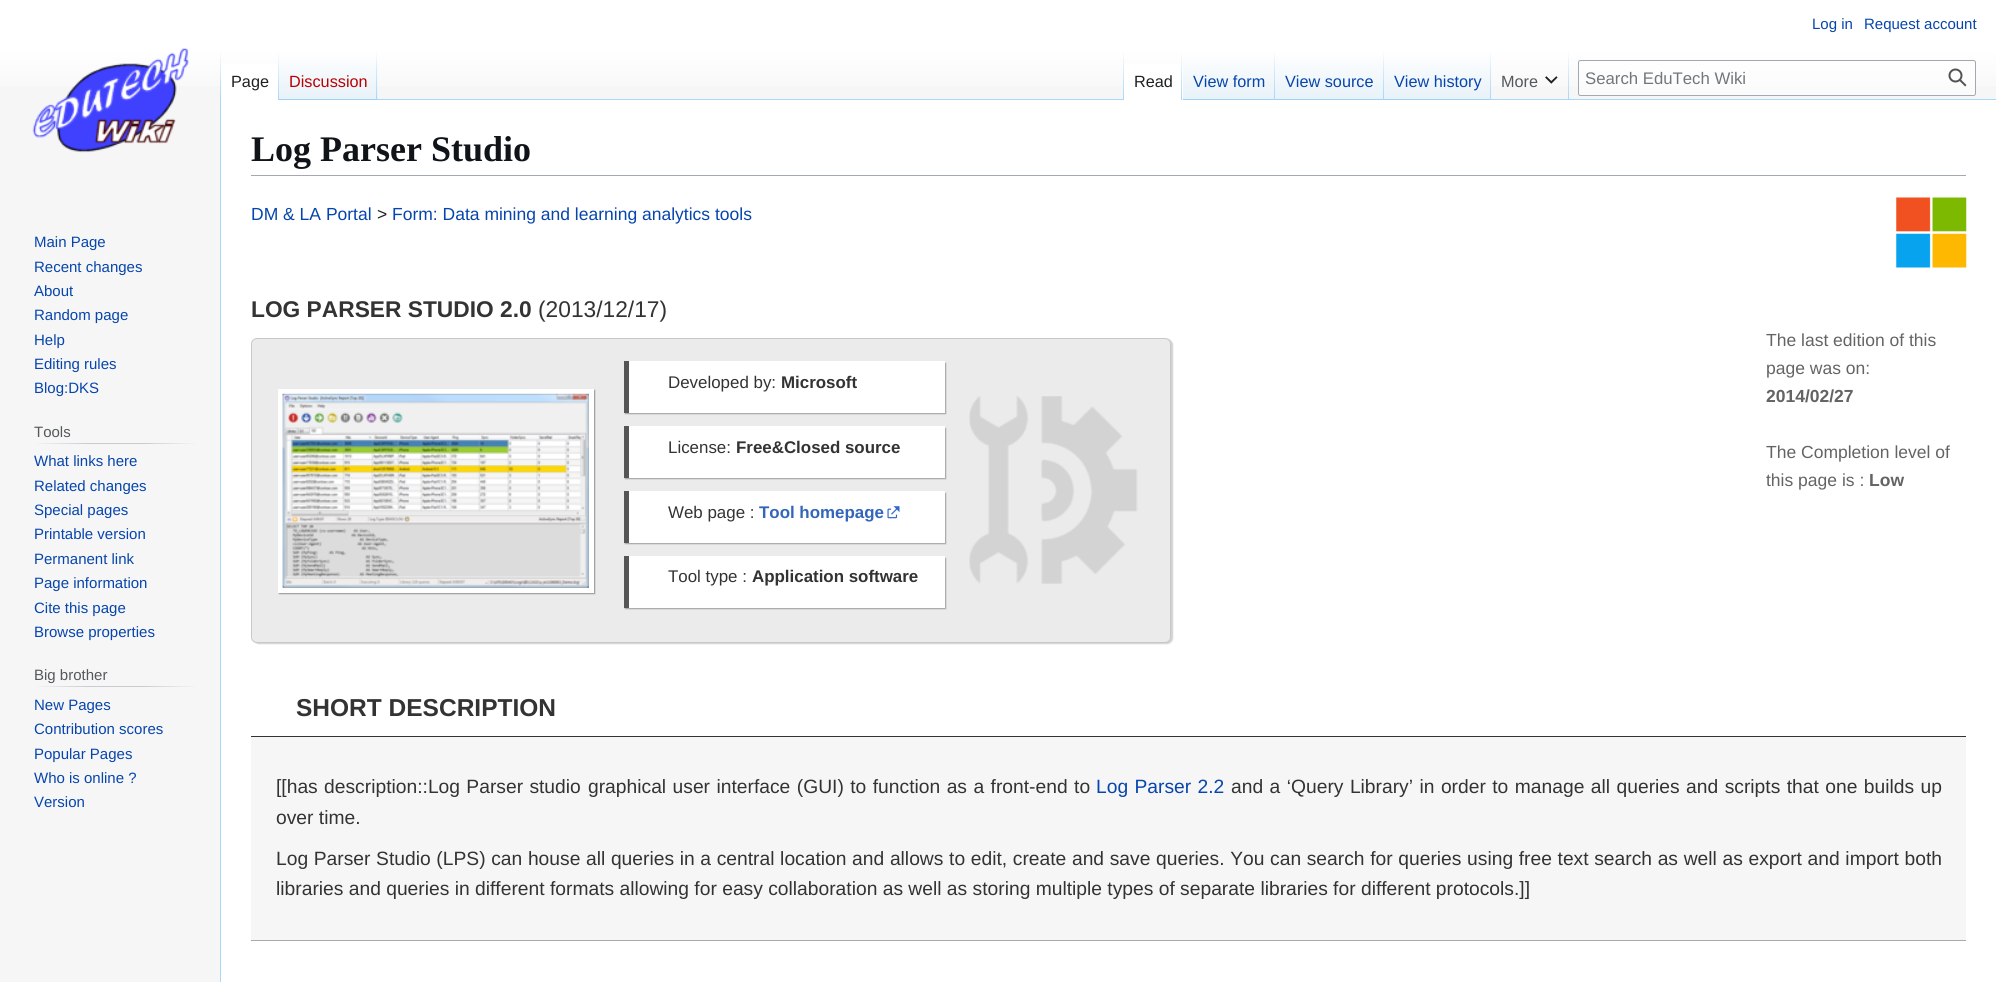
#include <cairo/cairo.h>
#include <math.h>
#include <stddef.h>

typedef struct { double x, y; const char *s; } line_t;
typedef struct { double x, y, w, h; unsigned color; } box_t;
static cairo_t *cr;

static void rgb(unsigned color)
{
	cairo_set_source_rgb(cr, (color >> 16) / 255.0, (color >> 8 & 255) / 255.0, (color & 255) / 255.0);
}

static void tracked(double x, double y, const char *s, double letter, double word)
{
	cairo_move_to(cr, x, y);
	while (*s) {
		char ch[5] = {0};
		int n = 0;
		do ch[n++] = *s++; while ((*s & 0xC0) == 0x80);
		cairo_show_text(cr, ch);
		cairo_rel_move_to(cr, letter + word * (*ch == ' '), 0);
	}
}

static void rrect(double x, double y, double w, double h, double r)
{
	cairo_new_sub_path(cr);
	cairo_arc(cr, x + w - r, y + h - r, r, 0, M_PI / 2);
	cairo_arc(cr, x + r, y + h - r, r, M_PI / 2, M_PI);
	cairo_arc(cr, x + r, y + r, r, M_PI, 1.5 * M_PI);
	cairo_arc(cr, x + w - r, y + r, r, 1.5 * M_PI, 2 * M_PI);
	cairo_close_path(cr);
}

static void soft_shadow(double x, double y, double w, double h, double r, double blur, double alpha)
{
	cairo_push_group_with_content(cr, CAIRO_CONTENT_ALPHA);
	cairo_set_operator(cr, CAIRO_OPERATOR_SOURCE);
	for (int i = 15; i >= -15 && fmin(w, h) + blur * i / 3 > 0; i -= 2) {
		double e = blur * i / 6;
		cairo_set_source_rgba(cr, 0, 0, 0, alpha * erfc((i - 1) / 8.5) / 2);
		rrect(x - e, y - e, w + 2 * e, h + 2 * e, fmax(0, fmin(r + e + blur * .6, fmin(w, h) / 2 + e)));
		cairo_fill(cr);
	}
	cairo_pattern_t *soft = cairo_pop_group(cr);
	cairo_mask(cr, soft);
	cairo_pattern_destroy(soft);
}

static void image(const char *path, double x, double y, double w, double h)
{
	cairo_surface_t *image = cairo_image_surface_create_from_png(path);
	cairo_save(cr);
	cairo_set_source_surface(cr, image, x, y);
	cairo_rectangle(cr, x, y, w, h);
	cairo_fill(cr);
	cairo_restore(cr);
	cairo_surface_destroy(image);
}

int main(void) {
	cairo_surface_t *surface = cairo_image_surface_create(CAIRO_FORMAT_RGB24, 1996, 982);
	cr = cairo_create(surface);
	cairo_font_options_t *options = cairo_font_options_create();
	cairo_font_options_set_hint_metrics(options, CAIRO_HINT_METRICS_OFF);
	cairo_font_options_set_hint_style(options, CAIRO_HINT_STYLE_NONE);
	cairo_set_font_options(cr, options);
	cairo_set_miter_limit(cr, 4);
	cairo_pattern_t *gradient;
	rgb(0xf6f6f6);
	cairo_paint(cr);
	gradient = cairo_pattern_create_linear(998, 0, 998, 100);
	cairo_pattern_add_color_stop_rgba(gradient, 0.5, 1, 1, 1, 1);
	cairo_pattern_add_color_stop_rgba(gradient, 1, 0.965, 0.965, 0.965, 1);
	cairo_set_source(cr, gradient);
	cairo_pattern_destroy(gradient);
	cairo_rectangle(cr, 0, 0, 1996, 86);
	cairo_fill(cr);
	rgb(0xa7d7f9);
	cairo_rectangle(cr, 220, 99, 1, 883);
	cairo_fill(cr);
	gradient = cairo_pattern_create_linear(221, 50, 221, 100);
	cairo_pattern_add_color_stop_rgba(gradient, 0, 0.655, 0.843, 0.976, 0);
	cairo_pattern_add_color_stop_rgba(gradient, 1, 0.655, 0.843, 0.976, 1);
	cairo_set_source(cr, gradient);
	cairo_pattern_destroy(gradient);
	cairo_rectangle(cr, 220, 50, 1, 50);
	cairo_fill(cr);
	rgb(0xffffff);
	cairo_rectangle(cr, 221, 64, 57, 36);
	cairo_fill(cr);
	gradient = cairo_pattern_create_linear(278, 50, 278, 100);
	cairo_pattern_add_color_stop_rgba(gradient, 0, 1, 1, 1, 1);
	cairo_pattern_add_color_stop_rgba(gradient, 1, 0.655, 0.843, 0.976, 1);
	cairo_set_source(cr, gradient);
	cairo_pattern_destroy(gradient);
	cairo_rectangle(cr, 278, 50, 1, 50);
	cairo_fill(cr);
	gradient = cairo_pattern_create_linear(328, 100, 328, 50);
	cairo_pattern_add_color_stop_rgba(gradient, 0, 0.467, 0.757, 0.965, 1);
	cairo_pattern_add_color_stop_rgba(gradient, 0.03, 0.91, 0.949, 0.973, 1);
	cairo_pattern_add_color_stop_rgba(gradient, 1, 1, 1, 1, 1);
	cairo_set_source(cr, gradient);
	cairo_pattern_destroy(gradient);
	cairo_rectangle(cr, 279, 57, 99, 43);
	cairo_fill(cr);
	gradient = cairo_pattern_create_linear(377, 50, 377, 100);
	cairo_pattern_add_color_stop_rgba(gradient, 0, 0.655, 0.843, 0.976, 0);
	cairo_pattern_add_color_stop_rgba(gradient, 1, 0.655, 0.843, 0.976, 1);
	cairo_set_source(cr, gradient);
	cairo_pattern_destroy(gradient);
	cairo_rectangle(cr, 376, 50, 1, 50);
	cairo_fill(cr);
	rgb(0xa7d7f9);
	cairo_rectangle(cr, 378, 99, 1618, 1);
	cairo_fill(cr);
	gradient = cairo_pattern_create_linear(1123, 50, 1123, 100);
	cairo_pattern_add_color_stop_rgba(gradient, 0, 0.655, 0.843, 0.976, 0);
	cairo_pattern_add_color_stop_rgba(gradient, 1, 0.655, 0.843, 0.976, 1);
	cairo_set_source(cr, gradient);
	cairo_pattern_destroy(gradient);
	cairo_rectangle(cr, 1123, 50, 1, 50);
	cairo_fill(cr);
	rgb(0xffffff);
	cairo_rectangle(cr, 1124, 64, 59, 36);
	cairo_fill(cr);
	gradient = cairo_pattern_create_linear(1182, 50, 1182, 100);
	cairo_pattern_add_color_stop_rgba(gradient, 0, 1, 1, 1, 1);
	cairo_pattern_add_color_stop_rgba(gradient, 1, 0.655, 0.843, 0.976, 1);
	cairo_set_source(cr, gradient);
	cairo_pattern_destroy(gradient);
	cairo_rectangle(cr, 1181, 50, 1, 50);
	cairo_fill(cr);
	gradient = cairo_pattern_create_linear(1229, 100, 1229, 50);
	cairo_pattern_add_color_stop_rgba(gradient, 0, 0.467, 0.757, 0.965, 1);
	cairo_pattern_add_color_stop_rgba(gradient, 0.03, 0.91, 0.949, 0.973, 1);
	cairo_pattern_add_color_stop_rgba(gradient, 1, 1, 1, 1, 1);
	cairo_set_source(cr, gradient);
	cairo_pattern_destroy(gradient);
	cairo_rectangle(cr, 1183, 57, 92, 43);
	cairo_fill(cr);
	gradient = cairo_pattern_create_linear(1274, 50, 1274, 100);
	cairo_pattern_add_color_stop_rgba(gradient, 0, 0.655, 0.843, 0.976, 0);
	cairo_pattern_add_color_stop_rgba(gradient, 1, 0.655, 0.843, 0.976, 1);
	cairo_set_source(cr, gradient);
	cairo_pattern_destroy(gradient);
	cairo_rectangle(cr, 1274, 50, 1, 50);
	cairo_fill(cr);
	gradient = cairo_pattern_create_linear(1329, 100, 1329, 50);
	cairo_pattern_add_color_stop_rgba(gradient, 0, 0.467, 0.757, 0.965, 1);
	cairo_pattern_add_color_stop_rgba(gradient, 0.03, 0.91, 0.949, 0.973, 1);
	cairo_pattern_add_color_stop_rgba(gradient, 1, 1, 1, 1, 1);
	cairo_set_source(cr, gradient);
	cairo_pattern_destroy(gradient);
	cairo_rectangle(cr, 1275, 57, 109, 43);
	cairo_fill(cr);
	gradient = cairo_pattern_create_linear(1383, 50, 1383, 100);
	cairo_pattern_add_color_stop_rgba(gradient, 0, 0.655, 0.843, 0.976, 0);
	cairo_pattern_add_color_stop_rgba(gradient, 1, 0.655, 0.843, 0.976, 1);
	cairo_set_source(cr, gradient);
	cairo_pattern_destroy(gradient);
	cairo_rectangle(cr, 1383, 50, 1, 50);
	cairo_fill(cr);
	gradient = cairo_pattern_create_linear(1438, 100, 1438, 50);
	cairo_pattern_add_color_stop_rgba(gradient, 0, 0.467, 0.757, 0.965, 1);
	cairo_pattern_add_color_stop_rgba(gradient, 0.03, 0.91, 0.949, 0.973, 1);
	cairo_pattern_add_color_stop_rgba(gradient, 1, 1, 1, 1, 1);
	cairo_set_source(cr, gradient);
	cairo_pattern_destroy(gradient);
	cairo_rectangle(cr, 1384, 57, 107, 43);
	cairo_fill(cr);
	gradient = cairo_pattern_create_linear(1491, 50, 1491, 100);
	cairo_pattern_add_color_stop_rgba(gradient, 0, 0.655, 0.843, 0.976, 0);
	cairo_pattern_add_color_stop_rgba(gradient, 1, 0.655, 0.843, 0.976, 1);
	cairo_set_source(cr, gradient);
	cairo_pattern_destroy(gradient);
	cairo_rectangle(cr, 1490, 50, 1, 50);
	cairo_fill(cr);
	gradient = cairo_pattern_create_linear(1568, 50, 1568, 100);
	cairo_pattern_add_color_stop_rgba(gradient, 0, 0.655, 0.843, 0.976, 0);
	cairo_pattern_add_color_stop_rgba(gradient, 1, 0.655, 0.843, 0.976, 1);
	cairo_set_source(cr, gradient);
	cairo_pattern_destroy(gradient);
	cairo_rectangle(cr, 1568, 50, 1, 50);
	cairo_fill(cr);
	image("img/1.png", 1545, 76, 13, 8);
	cairo_set_source_rgba(cr, 1, 1, 1, 0.5);
	rrect(1578.5, 60.5, 397, 35, 2);
	cairo_fill_preserve(cr);
	rgb(0xa2a9b1);
	cairo_set_line_width(cr, 1);
	cairo_stroke(cr);
	image("img/2.png", 1948, 68, 19, 19);
	image("img/3.png", 32, 48, 157, 105);
	gradient = cairo_pattern_create_linear(34, 443, 198, 443);
	cairo_pattern_add_color_stop_rgba(gradient, 0, 0.965, 0.965, 0.965, 1);
	cairo_pattern_add_color_stop_rgba(gradient, 0.33, 0.784, 0.8, 0.82, 1);
	cairo_pattern_add_color_stop_rgba(gradient, 0.66, 0.784, 0.8, 0.82, 1);
	cairo_pattern_add_color_stop_rgba(gradient, 1, 0.965, 0.965, 0.965, 1);
	cairo_set_source(cr, gradient);
	cairo_pattern_destroy(gradient);
	cairo_rectangle(cr, 34, 443, 164, 1);
	cairo_fill(cr);
	gradient = cairo_pattern_create_linear(34, 687, 198, 687);
	cairo_pattern_add_color_stop_rgba(gradient, 0, 0.965, 0.965, 0.965, 1);
	cairo_pattern_add_color_stop_rgba(gradient, 0.33, 0.784, 0.8, 0.82, 1);
	cairo_pattern_add_color_stop_rgba(gradient, 0.66, 0.784, 0.8, 0.82, 1);
	cairo_pattern_add_color_stop_rgba(gradient, 1, 0.965, 0.965, 0.965, 1);
	cairo_set_source(cr, gradient);
	cairo_pattern_destroy(gradient);
	cairo_rectangle(cr, 34, 686, 164, 1);
	cairo_fill(cr);
	rgb(0xffffff);
	cairo_rectangle(cr, 221, 100, 1775, 882);
	cairo_fill(cr);
	rgb(0xa2a9b1);
	cairo_rectangle(cr, 251, 175, 1715, 1);
	cairo_fill(cr);
	image("img/4.png", 1896, 197, 71, 71);
	rgb(0xd3d3d3);
	soft_shadow(253, 339, 920, 305, 6, 0.5, 1);
	rgb(0xebebeb);
	rrect(251.5, 338.5, 919, 304, 5.5);
	cairo_fill_preserve(cr);
	rgb(0xc8c8c8);
	cairo_stroke(cr);
	rgb(0x999999);
	soft_shadow(279, 390, 316, 204, 0, 0.5, 1);
	cairo_rectangle(cr, 280.5, 391.5, 311, 199);
	rgb(0xffffff);
	cairo_set_line_width(cr, 5);
	cairo_stroke(cr);
	image("img/5.png", 282, 393, 307, 195);
	rgb(0x000000);
	soft_shadow(625, 363, 321, 51, 0, 0.5, 0.3);
	rgb(0xffffff);
	cairo_rectangle(cr, 629, 361, 316, 52);
	cairo_fill(cr);
	rgb(0x555555);
	cairo_rectangle(cr, 624, 361, 5, 52);
	cairo_fill(cr);
	rgb(0x000000);
	soft_shadow(625, 428, 321, 51, 0, 0.5, 0.3);
	rgb(0xffffff);
	cairo_rectangle(cr, 629, 426, 316, 52);
	cairo_fill(cr);
	rgb(0x555555);
	cairo_rectangle(cr, 624, 426, 5, 52);
	cairo_fill(cr);
	rgb(0x000000);
	soft_shadow(625, 493, 321, 51, 0, 0.5, 0.3);
	rgb(0xffffff);
	cairo_rectangle(cr, 629, 491, 316, 52);
	cairo_fill(cr);
	rgb(0x555555);
	cairo_rectangle(cr, 624, 491, 5, 52);
	cairo_fill(cr);
	image("img/6.png", 887, 506, 13, 13);
	rgb(0x000000);
	soft_shadow(625, 558, 321, 51, 0, 0.5, 0.3);
	rgb(0xffffff);
	cairo_rectangle(cr, 629, 556, 316, 52);
	cairo_fill(cr);
	rgb(0x555555);
	cairo_rectangle(cr, 624, 556, 5, 52);
	cairo_fill(cr);
	image("img/7.png", 969, 396, 169, 188);
	{
		static const box_t items[] = {
			{251, 737, 1715, 203, 0xf6f6f6},
			{251, 736, 1715, 1, 0x333333},
			{251, 940, 1715, 1, 0xaaaaaa},
		};
		for (size_t i = 0; i < sizeof items / sizeof *items; i++) {
			rgb(items[i].color);
			cairo_rectangle(cr, items[i].x, items[i].y, items[i].w, items[i].h);
			cairo_fill(cr);
		}
	}
	cairo_select_font_face(cr, "Liberation Sans", CAIRO_FONT_SLANT_NORMAL, CAIRO_FONT_WEIGHT_NORMAL);
	cairo_set_font_size(cr, 15);
	rgb(0x0645ad);
	cairo_move_to(cr, 1812, 29);
	cairo_show_text(cr, "Log in");
	cairo_move_to(cr, 1864, 29);
	cairo_show_text(cr, "Request account");
	cairo_set_font_size(cr, 16.25);
	rgb(0x202122);
	cairo_move_to(cr, 231, 87);
	cairo_show_text(cr, "Page");
	rgb(0xba0000);
	cairo_move_to(cr, 289, 87);
	cairo_show_text(cr, "Discussion");
	rgb(0x202122);
	cairo_move_to(cr, 1134, 87);
	cairo_show_text(cr, "Read");
	rgb(0x0645ad);
	{
		static const line_t items[] = {
			{1193, 87, "View form"},
			{1285, 87, "View source"},
			{1394, 87, "View history"},
		};
		for (size_t i = 0; i < sizeof items / sizeof *items; i++) {
			cairo_move_to(cr, items[i].x, items[i].y);
			cairo_show_text(cr, items[i].s);
		}
	}
	rgb(0x54595d);
	cairo_move_to(cr, 1501, 87);
	cairo_show_text(cr, "More");
	cairo_set_font_size(cr, 16.75);
	rgb(0x72777d);
	cairo_move_to(cr, 1585, 84);
	cairo_show_text(cr, "Search EduTech Wiki");
	cairo_set_font_size(cr, 15);
	rgb(0x0645ad);
	{
		static const line_t items[] = {
			{34, 247, "Main Page"},
			{34, 272, "Recent changes"},
			{34, 296, "About"},
			{34, 320, "Random page"},
			{34, 345, "Help"},
			{34, 369, "Editing rules"},
			{34, 393, "Blog:DKS"},
		};
		for (size_t i = 0; i < sizeof items / sizeof *items; i++) {
			cairo_move_to(cr, items[i].x, items[i].y);
			cairo_show_text(cr, items[i].s);
		}
	}
	rgb(0x54595d);
	cairo_move_to(cr, 34, 437);
	cairo_show_text(cr, "Tools");
	rgb(0x0645ad);
	{
		static const line_t items[] = {
			{34, 466, "What links here"},
			{34, 491, "Related changes"},
			{34, 515, "Special pages"},
			{34, 539, "Printable version"},
			{34, 564, "Permanent link"},
			{34, 588, "Page information"},
			{34, 613, "Cite this page"},
			{34, 637, "Browse properties"},
		};
		for (size_t i = 0; i < sizeof items / sizeof *items; i++) {
			cairo_move_to(cr, items[i].x, items[i].y);
			cairo_show_text(cr, items[i].s);
		}
	}
	rgb(0x54595d);
	cairo_move_to(cr, 34, 680);
	cairo_show_text(cr, "Big brother");
	rgb(0x0645ad);
	{
		static const line_t items[] = {
			{34, 710, "New Pages"},
			{34, 734, "Contribution scores"},
			{34, 759, "Popular Pages"},
			{34, 783, "Who is online ?"},
			{34, 807, "Version"},
		};
		for (size_t i = 0; i < sizeof items / sizeof *items; i++) {
			cairo_move_to(cr, items[i].x, items[i].y);
			cairo_show_text(cr, items[i].s);
		}
	}
	cairo_select_font_face(cr, "Liberation Serif", CAIRO_FONT_SLANT_NORMAL, CAIRO_FONT_WEIGHT_BOLD);
	cairo_set_font_size(cr, 36);
	rgb(0x101418);
	cairo_move_to(cr, 251, 161);
	cairo_show_text(cr, "Log Parser Studio");
	cairo_select_font_face(cr, "Liberation Sans", CAIRO_FONT_SLANT_NORMAL, CAIRO_FONT_WEIGHT_NORMAL);
	cairo_set_font_size(cr, 17.5);
	rgb(0x0645ad);
	cairo_move_to(cr, 251, 220);
	cairo_show_text(cr, "DM & LA Portal");
	rgb(0x202122);
	cairo_move_to(cr, 377, 220);
	cairo_show_text(cr, ">");
	rgb(0x0645ad);
	cairo_move_to(cr, 392, 220);
	cairo_show_text(cr, "Form: Data mining and learning analytics tools");
	cairo_select_font_face(cr, "Liberation Sans", CAIRO_FONT_SLANT_NORMAL, CAIRO_FONT_WEIGHT_BOLD);
	cairo_set_font_size(cr, 22.75);
	rgb(0x333333);
	cairo_move_to(cr, 251, 317);
	cairo_show_text(cr, "LOG PARSER STUDIO 2.0");
	cairo_select_font_face(cr, "Liberation Sans", CAIRO_FONT_SLANT_NORMAL, CAIRO_FONT_WEIGHT_NORMAL);
	cairo_move_to(cr, 538, 317);
	cairo_show_text(cr, "(2013/12/17)");
	cairo_set_font_size(cr, 16.9);
	cairo_move_to(cr, 668, 388);
	cairo_show_text(cr, "Developed by:");
	cairo_select_font_face(cr, "Liberation Sans", CAIRO_FONT_SLANT_NORMAL, CAIRO_FONT_WEIGHT_BOLD);
	cairo_move_to(cr, 781, 388);
	cairo_show_text(cr, "Microsoft");
	cairo_select_font_face(cr, "Liberation Sans", CAIRO_FONT_SLANT_NORMAL, CAIRO_FONT_WEIGHT_NORMAL);
	cairo_move_to(cr, 668, 453);
	cairo_show_text(cr, "License:");
	cairo_select_font_face(cr, "Liberation Sans", CAIRO_FONT_SLANT_NORMAL, CAIRO_FONT_WEIGHT_BOLD);
	cairo_move_to(cr, 736, 453);
	cairo_show_text(cr, "Free&Closed source");
	cairo_select_font_face(cr, "Liberation Sans", CAIRO_FONT_SLANT_NORMAL, CAIRO_FONT_WEIGHT_NORMAL);
	cairo_move_to(cr, 668, 518);
	cairo_show_text(cr, "Web page :");
	cairo_select_font_face(cr, "Liberation Sans", CAIRO_FONT_SLANT_NORMAL, CAIRO_FONT_WEIGHT_BOLD);
	rgb(0x3366bb);
	cairo_move_to(cr, 759, 518);
	cairo_show_text(cr, "Tool homepage");
	cairo_select_font_face(cr, "Liberation Sans", CAIRO_FONT_SLANT_NORMAL, CAIRO_FONT_WEIGHT_NORMAL);
	rgb(0x333333);
	cairo_move_to(cr, 668, 582);
	cairo_show_text(cr, "Tool type :");
	cairo_select_font_face(cr, "Liberation Sans", CAIRO_FONT_SLANT_NORMAL, CAIRO_FONT_WEIGHT_BOLD);
	cairo_move_to(cr, 752, 582);
	cairo_show_text(cr, "Application software");
	cairo_select_font_face(cr, "Liberation Sans", CAIRO_FONT_SLANT_NORMAL, CAIRO_FONT_WEIGHT_NORMAL);
	cairo_set_font_size(cr, 17.5);
	rgb(0x636464);
	cairo_move_to(cr, 1766, 346);
	cairo_show_text(cr, "The last edition of this");
	cairo_move_to(cr, 1766, 374);
	cairo_show_text(cr, "page was on:");
	cairo_select_font_face(cr, "Liberation Sans", CAIRO_FONT_SLANT_NORMAL, CAIRO_FONT_WEIGHT_BOLD);
	cairo_move_to(cr, 1766, 402);
	cairo_show_text(cr, "2014/02/27");
	cairo_select_font_face(cr, "Liberation Sans", CAIRO_FONT_SLANT_NORMAL, CAIRO_FONT_WEIGHT_NORMAL);
	cairo_move_to(cr, 1766, 458);
	cairo_show_text(cr, "The Completion level of");
	cairo_move_to(cr, 1766, 486);
	cairo_show_text(cr, "this page is :");
	cairo_select_font_face(cr, "Liberation Sans", CAIRO_FONT_SLANT_NORMAL, CAIRO_FONT_WEIGHT_BOLD);
	cairo_move_to(cr, 1869, 486);
	cairo_show_text(cr, "Low");
	cairo_set_font_size(cr, 24.5);
	rgb(0x333333);
	cairo_move_to(cr, 296, 716);
	cairo_show_text(cr, "SHORT DESCRIPTION");
	cairo_select_font_face(cr, "Liberation Sans", CAIRO_FONT_SLANT_NORMAL, CAIRO_FONT_WEIGHT_NORMAL);
	cairo_set_font_size(cr, 19.25);
	tracked(276, 793, "[[has description::Log Parser studio", 0, 1);
	tracked(588, 793, "graphical user interface (GUI) to function as a front-end to", 0, 1.1);
	rgb(0x0645ad);
	tracked(1096, 793, "Log Parser 2.2", 0, 1);
	rgb(0x333333);
	tracked(1231, 793, "and a ‘Query Library’ in order to manage all queries and scripts that one builds up", 0, 1.1);
	cairo_move_to(cr, 276, 824);
	cairo_show_text(cr, "over time.");
	tracked(276, 865, "Log Parser Studio (LPS) can house all queries in a central location and allows to edit, create and save queries. You can search for queries using free text search as well as export and import both", 0, 0.3);
	cairo_move_to(cr, 276, 895);
	cairo_show_text(cr, "libraries and queries in different formats allowing for easy collaboration as well as storing multiple types of separate libraries for different protocols.]]");
	cairo_surface_write_to_png(surface, "page.png");
	cairo_font_options_destroy(options);
	cairo_destroy(cr);
	cairo_surface_destroy(surface);
	return 0;
}
